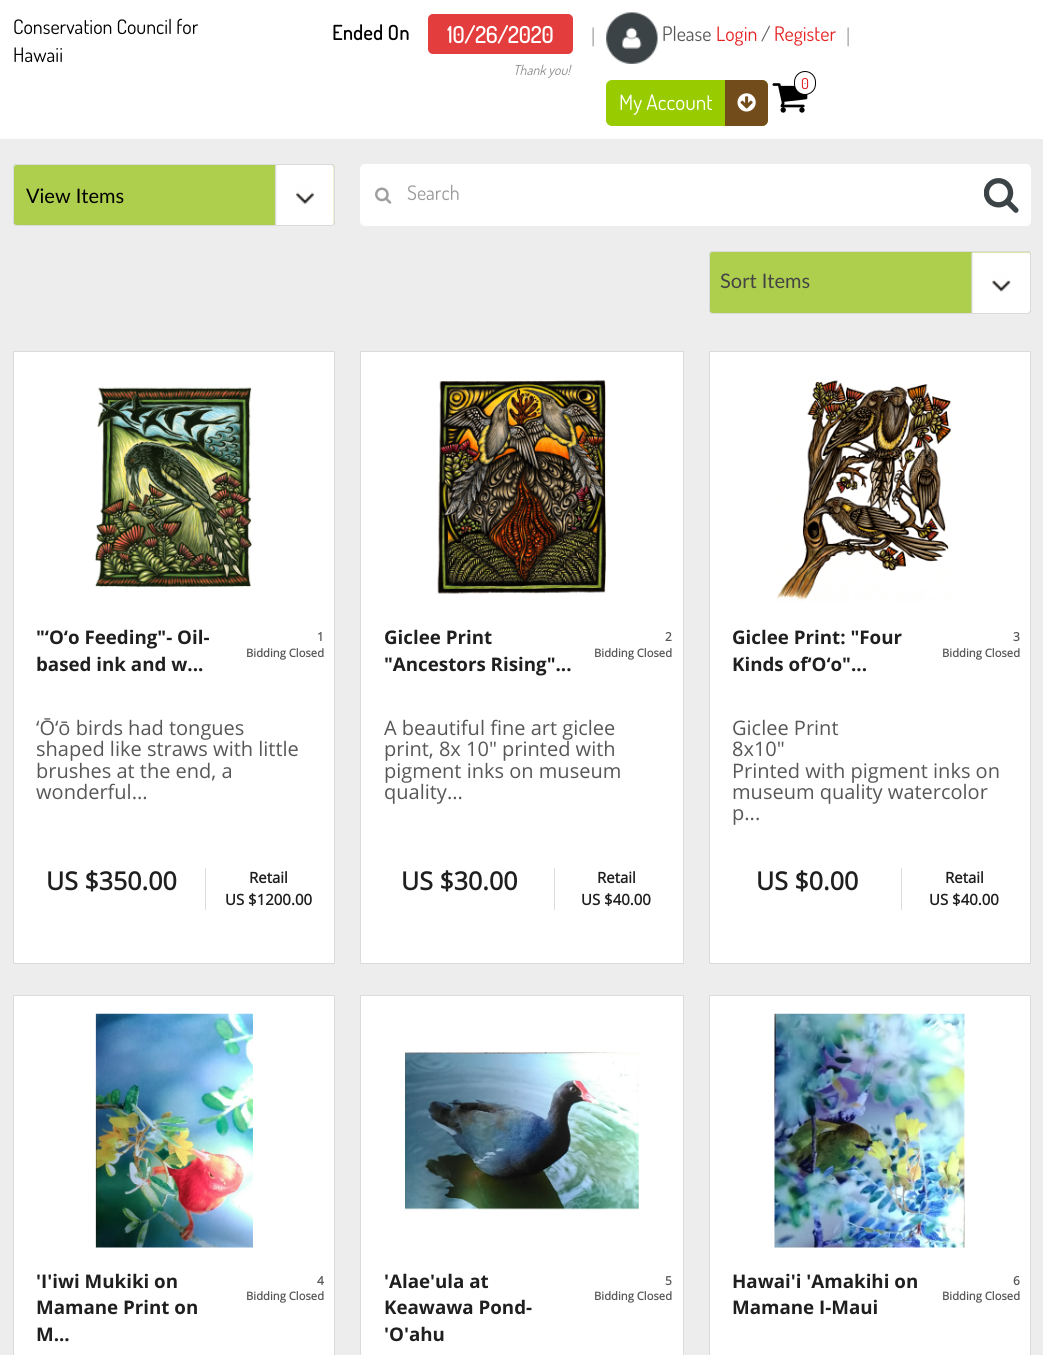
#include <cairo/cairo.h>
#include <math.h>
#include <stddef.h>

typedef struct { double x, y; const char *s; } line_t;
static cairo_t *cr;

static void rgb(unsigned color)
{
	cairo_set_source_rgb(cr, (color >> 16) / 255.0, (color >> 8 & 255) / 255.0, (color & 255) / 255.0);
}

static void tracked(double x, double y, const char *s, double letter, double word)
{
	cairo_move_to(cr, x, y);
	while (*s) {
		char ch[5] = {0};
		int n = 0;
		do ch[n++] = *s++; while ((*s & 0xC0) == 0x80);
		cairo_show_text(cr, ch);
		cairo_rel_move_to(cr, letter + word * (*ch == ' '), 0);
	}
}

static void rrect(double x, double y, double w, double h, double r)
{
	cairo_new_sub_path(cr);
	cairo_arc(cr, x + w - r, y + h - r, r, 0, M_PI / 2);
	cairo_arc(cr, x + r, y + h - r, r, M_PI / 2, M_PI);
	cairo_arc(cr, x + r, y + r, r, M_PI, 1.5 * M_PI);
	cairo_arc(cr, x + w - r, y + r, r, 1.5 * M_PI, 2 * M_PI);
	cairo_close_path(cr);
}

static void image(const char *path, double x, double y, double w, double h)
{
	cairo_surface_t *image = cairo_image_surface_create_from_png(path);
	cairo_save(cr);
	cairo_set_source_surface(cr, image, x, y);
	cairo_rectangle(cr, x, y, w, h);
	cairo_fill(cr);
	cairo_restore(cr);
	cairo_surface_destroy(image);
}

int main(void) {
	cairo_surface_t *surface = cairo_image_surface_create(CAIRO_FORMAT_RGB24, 1043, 1355);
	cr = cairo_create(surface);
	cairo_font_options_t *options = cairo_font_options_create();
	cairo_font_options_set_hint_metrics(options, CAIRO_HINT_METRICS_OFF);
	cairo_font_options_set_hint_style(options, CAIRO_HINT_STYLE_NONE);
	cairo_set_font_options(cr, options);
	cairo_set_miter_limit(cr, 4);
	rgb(0xededed);
	cairo_paint(cr);
	rgb(0xffffff);
	cairo_rectangle(cr, 0, 0, 1043, 139);
	cairo_fill(cr);
	image("img/1.png", 592, 27, 2, 20);
	rgb(0xe33d3d);
	rrect(428, 14, 145, 40, 5);
	cairo_fill(cr);
	image("img/1.png", 847, 27, 2, 20);
	image("img/2.png", 606, 12, 52, 52);
	image("img/3.png", 772, 83, 36, 30);
	rgb(0xffffff);
	rrect(794.5, 71.5, 21, 23, 10.5);
	cairo_fill_preserve(cr);
	rgb(0x000000);
	cairo_set_line_width(cr, 1);
	cairo_stroke(cr);
	rgb(0x99cc00);
	rrect(606, 80, 162, 46, 6);
	cairo_fill(cr);
	rgb(0x724c1b);
	cairo_new_path(cr);
	cairo_move_to(cr, 725, 80);
	cairo_line_to(cr, 762, 80);
	cairo_curve_to(cr, 765.5, 80, 768, 82.5, 768, 86);
	cairo_line_to(cr, 768, 120);
	cairo_curve_to(cr, 768, 123.5, 765.5, 126, 762, 126);
	cairo_line_to(cr, 725, 126);
	cairo_close_path(cr);
	cairo_fill(cr);
	image("img/4.png", 737, 93, 19, 19);
	rgb(0xaece4e);
	rrect(13, 164, 322, 62, 4);
	cairo_fill(cr);
	image("img/5.png", 275, 165, 59, 61);
	rrect(13.5, 164.5, 321, 61, 3.5);
	rgb(0xdbdbde);
	cairo_stroke(cr);
	rgb(0xffffff);
	cairo_new_path(cr);
	cairo_move_to(cr, 365, 164);
	cairo_line_to(cr, 406, 164);
	cairo_line_to(cr, 406, 226);
	cairo_line_to(cr, 365, 226);
	cairo_curve_to(cr, 362, 226, 360, 224, 360, 221);
	cairo_line_to(cr, 360, 169);
	cairo_curve_to(cr, 360, 166, 362, 164, 365, 164);
	cairo_close_path(cr);
	cairo_fill(cr);
	image("img/6.png", 375, 187, 17, 17);
	cairo_rectangle(cr, 406, 164, 578, 62);
	cairo_fill(cr);
	cairo_new_path(cr);
	cairo_move_to(cr, 984, 164);
	cairo_line_to(cr, 1026, 164);
	cairo_curve_to(cr, 1029, 164, 1031, 166, 1031, 169);
	cairo_line_to(cr, 1031, 221);
	cairo_curve_to(cr, 1031, 224, 1029, 226, 1026, 226);
	cairo_line_to(cr, 984, 226);
	cairo_close_path(cr);
	cairo_fill(cr);
	image("img/7.png", 984, 178, 35, 35);
	rgb(0xaece4e);
	rrect(709, 251, 322, 63, 4);
	cairo_fill(cr);
	image("img/8.png", 971, 252, 59, 62);
	rrect(709.5, 251.5, 321, 62, 3.5);
	rgb(0xdbdbde);
	cairo_stroke(cr);
	rgb(0xffffff);
	cairo_rectangle(cr, 13.5, 351.5, 321, 612);
	cairo_fill_preserve(cr);
	rgb(0xdbdbdb);
	cairo_stroke(cr);
	image("img/9.png", 95, 387, 157, 200);
	rgb(0xdddddd);
	cairo_rectangle(cr, 205, 868, 1, 42);
	cairo_fill(cr);
	rgb(0xffffff);
	cairo_rectangle(cr, 360.5, 351.5, 323, 612);
	cairo_fill_preserve(cr);
	rgb(0xdbdbdb);
	cairo_stroke(cr);
	image("img/10.png", 437, 380, 170, 214);
	rgb(0xdddddd);
	cairo_rectangle(cr, 554, 868, 1, 42);
	cairo_fill(cr);
	rgb(0xffffff);
	cairo_rectangle(cr, 709.5, 351.5, 321, 612);
	cairo_fill_preserve(cr);
	rgb(0xdbdbdb);
	cairo_stroke(cr);
	image("img/11.png", 775, 380, 176, 222);
	rgb(0xdddddd);
	cairo_rectangle(cr, 901, 868, 1, 42);
	cairo_fill(cr);
	rgb(0xffffff);
	cairo_rectangle(cr, 13.5, 995.5, 321, 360);
	cairo_fill_preserve(cr);
	rgb(0xdbdbdb);
	cairo_stroke(cr);
	image("img/12.png", 95, 1013, 158, 235);
	rgb(0xffffff);
	cairo_rectangle(cr, 360.5, 995.5, 323, 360);
	cairo_fill_preserve(cr);
	rgb(0xdbdbdb);
	cairo_stroke(cr);
	image("img/13.png", 405, 1052, 234, 158);
	rgb(0xffffff);
	cairo_rectangle(cr, 709.5, 995.5, 321, 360);
	cairo_fill_preserve(cr);
	rgb(0xdbdbdb);
	cairo_stroke(cr);
	image("img/14.png", 774, 1013, 191, 235);
	cairo_select_font_face(cr, "Dosis", CAIRO_FONT_SLANT_NORMAL, CAIRO_FONT_WEIGHT_NORMAL);
	cairo_set_font_size(cr, 20);
	rgb(0x000000);
	cairo_move_to(cr, 13, 34);
	cairo_show_text(cr, "Conservation Council for");
	cairo_move_to(cr, 13, 62);
	cairo_show_text(cr, "Hawaii");
	cairo_select_font_face(cr, "Dosis", CAIRO_FONT_SLANT_NORMAL, CAIRO_FONT_WEIGHT_BOLD);
	tracked(332, 40, "Ended On", 0.5, 0);
	cairo_set_font_size(cr, 22.5);
	rgb(0xffffff);
	cairo_move_to(cr, 447, 43);
	cairo_show_text(cr, "10/26/2020");
	cairo_select_font_face(cr, "Dosis", CAIRO_FONT_SLANT_ITALIC, CAIRO_FONT_WEIGHT_NORMAL);
	cairo_set_font_size(cr, 13.75);
	rgb(0x8a8a8a);
	cairo_move_to(cr, 513, 75);
	cairo_show_text(cr, "Thank you!");
	cairo_select_font_face(cr, "Dosis", CAIRO_FONT_SLANT_NORMAL, CAIRO_FONT_WEIGHT_NORMAL);
	cairo_set_font_size(cr, 20);
	rgb(0x585858);
	cairo_move_to(cr, 662, 41);
	cairo_show_text(cr, "Please");
	rgb(0xe52323);
	cairo_move_to(cr, 716, 41);
	cairo_show_text(cr, "Login");
	rgb(0x585858);
	cairo_move_to(cr, 761, 41);
	cairo_show_text(cr, "/");
	rgb(0xe52323);
	cairo_move_to(cr, 774, 41);
	cairo_show_text(cr, "Register");
	cairo_set_font_size(cr, 15);
	rgb(0xdd0e0e);
	cairo_move_to(cr, 801, 89);
	cairo_show_text(cr, "0");
	cairo_set_font_size(cr, 21.25);
	rgb(0xffffff);
	cairo_move_to(cr, 619, 110);
	cairo_show_text(cr, "My Account");
	cairo_select_font_face(cr, "Lato", CAIRO_FONT_SLANT_NORMAL, CAIRO_FONT_WEIGHT_NORMAL);
	cairo_set_font_size(cr, 20);
	rgb(0x000000);
	cairo_move_to(cr, 26, 203);
	cairo_show_text(cr, "View Items");
	cairo_select_font_face(cr, "Dosis", CAIRO_FONT_SLANT_NORMAL, CAIRO_FONT_WEIGHT_NORMAL);
	rgb(0x999999);
	cairo_move_to(cr, 407, 200);
	cairo_show_text(cr, "Search");
	cairo_select_font_face(cr, "Lato", CAIRO_FONT_SLANT_NORMAL, CAIRO_FONT_WEIGHT_NORMAL);
	rgb(0x444444);
	cairo_move_to(cr, 720, 288);
	cairo_show_text(cr, "Sort Items");
	cairo_select_font_face(cr, "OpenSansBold", CAIRO_FONT_SLANT_NORMAL, CAIRO_FONT_WEIGHT_BOLD);
	cairo_set_font_size(cr, 18.75);
	rgb(0x1f1f1f);
	cairo_move_to(cr, 36, 644);
	cairo_show_text(cr, "\"‘O‘o Feeding\"- Oil-");
	cairo_move_to(cr, 36, 671);
	cairo_show_text(cr, "based ink and w...");
	cairo_select_font_face(cr, "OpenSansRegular", CAIRO_FONT_SLANT_NORMAL, CAIRO_FONT_WEIGHT_BOLD);
	cairo_set_font_size(cr, 12);
	rgb(0x585858);
	cairo_move_to(cr, 317, 641);
	cairo_show_text(cr, "1");
	cairo_set_font_size(cr, 11.25);
	cairo_move_to(cr, 246, 657);
	cairo_show_text(cr, "Bidding Closed");
	cairo_select_font_face(cr, "OpenSansRegular", CAIRO_FONT_SLANT_NORMAL, CAIRO_FONT_WEIGHT_NORMAL);
	cairo_set_font_size(cr, 20);
	{
		static const line_t items[] = {
			{36, 735, "‘Ō‘ō birds had tongues"},
			{36, 756, "shaped like straws with little"},
			{36, 778, "brushes at the end, a"},
			{36, 799, "wonderful..."},
		};
		for (size_t i = 0; i < sizeof items / sizeof *items; i++) {
			cairo_move_to(cr, items[i].x, items[i].y);
			cairo_show_text(cr, items[i].s);
		}
	}
	cairo_select_font_face(cr, "OpenSansRegular", CAIRO_FONT_SLANT_NORMAL, CAIRO_FONT_WEIGHT_BOLD);
	cairo_set_font_size(cr, 25);
	rgb(0x1f1f1f);
	cairo_move_to(cr, 46, 890);
	cairo_show_text(cr, "US $350.00");
	cairo_set_font_size(cr, 15);
	cairo_move_to(cr, 249, 883);
	cairo_show_text(cr, "Retail");
	cairo_move_to(cr, 225, 905);
	cairo_show_text(cr, "US $1200.00");
	cairo_select_font_face(cr, "OpenSansBold", CAIRO_FONT_SLANT_NORMAL, CAIRO_FONT_WEIGHT_BOLD);
	cairo_set_font_size(cr, 18.75);
	cairo_move_to(cr, 384, 644);
	cairo_show_text(cr, "Giclee Print");
	cairo_move_to(cr, 384, 671);
	cairo_show_text(cr, "\"Ancestors Rising\"...");
	cairo_select_font_face(cr, "OpenSansRegular", CAIRO_FONT_SLANT_NORMAL, CAIRO_FONT_WEIGHT_BOLD);
	cairo_set_font_size(cr, 12);
	rgb(0x585858);
	cairo_move_to(cr, 665, 641);
	cairo_show_text(cr, "2");
	cairo_set_font_size(cr, 11.25);
	cairo_move_to(cr, 594, 657);
	cairo_show_text(cr, "Bidding Closed");
	cairo_select_font_face(cr, "OpenSansRegular", CAIRO_FONT_SLANT_NORMAL, CAIRO_FONT_WEIGHT_NORMAL);
	cairo_set_font_size(cr, 20);
	{
		static const line_t items[] = {
			{384, 735, "A beautiful fine art giclee"},
			{384, 756, "print, 8x 10\" printed with"},
			{384, 778, "pigment inks on museum"},
			{384, 799, "quality..."},
		};
		for (size_t i = 0; i < sizeof items / sizeof *items; i++) {
			cairo_move_to(cr, items[i].x, items[i].y);
			cairo_show_text(cr, items[i].s);
		}
	}
	cairo_select_font_face(cr, "OpenSansRegular", CAIRO_FONT_SLANT_NORMAL, CAIRO_FONT_WEIGHT_BOLD);
	cairo_set_font_size(cr, 25);
	rgb(0x1f1f1f);
	cairo_move_to(cr, 401, 890);
	cairo_show_text(cr, "US $30.00");
	cairo_set_font_size(cr, 15);
	cairo_move_to(cr, 597, 883);
	cairo_show_text(cr, "Retail");
	cairo_move_to(cr, 581, 905);
	cairo_show_text(cr, "US $40.00");
	cairo_select_font_face(cr, "OpenSansBold", CAIRO_FONT_SLANT_NORMAL, CAIRO_FONT_WEIGHT_BOLD);
	cairo_set_font_size(cr, 18.75);
	cairo_move_to(cr, 732, 644);
	cairo_show_text(cr, "Giclee Print: \"Four");
	cairo_move_to(cr, 732, 671);
	cairo_show_text(cr, "Kinds of‘O‘o\"...");
	cairo_select_font_face(cr, "OpenSansRegular", CAIRO_FONT_SLANT_NORMAL, CAIRO_FONT_WEIGHT_BOLD);
	cairo_set_font_size(cr, 12);
	rgb(0x585858);
	cairo_move_to(cr, 1013, 641);
	cairo_show_text(cr, "3");
	cairo_set_font_size(cr, 11.25);
	cairo_move_to(cr, 942, 657);
	cairo_show_text(cr, "Bidding Closed");
	cairo_select_font_face(cr, "OpenSansRegular", CAIRO_FONT_SLANT_NORMAL, CAIRO_FONT_WEIGHT_NORMAL);
	cairo_set_font_size(cr, 20);
	{
		static const line_t items[] = {
			{732, 735, "Giclee Print"},
			{732, 756, "8x10\""},
			{732, 778, "Printed with pigment inks on"},
			{732, 799, "museum quality watercolor"},
			{732, 820, "p..."},
		};
		for (size_t i = 0; i < sizeof items / sizeof *items; i++) {
			cairo_move_to(cr, items[i].x, items[i].y);
			cairo_show_text(cr, items[i].s);
		}
	}
	cairo_select_font_face(cr, "OpenSansRegular", CAIRO_FONT_SLANT_NORMAL, CAIRO_FONT_WEIGHT_BOLD);
	cairo_set_font_size(cr, 25);
	rgb(0x1f1f1f);
	cairo_move_to(cr, 756, 890);
	cairo_show_text(cr, "US $0.00");
	cairo_set_font_size(cr, 15);
	cairo_move_to(cr, 945, 883);
	cairo_show_text(cr, "Retail");
	cairo_move_to(cr, 929, 905);
	cairo_show_text(cr, "US $40.00");
	cairo_select_font_face(cr, "OpenSansBold", CAIRO_FONT_SLANT_NORMAL, CAIRO_FONT_WEIGHT_BOLD);
	cairo_set_font_size(cr, 18.75);
	{
		static const line_t items[] = {
			{36, 1288, "'I'iwi Mukiki on"},
			{36, 1314, "Mamane Print on"},
			{36, 1341, "M..."},
		};
		for (size_t i = 0; i < sizeof items / sizeof *items; i++) {
			cairo_move_to(cr, items[i].x, items[i].y);
			cairo_show_text(cr, items[i].s);
		}
	}
	cairo_select_font_face(cr, "OpenSansRegular", CAIRO_FONT_SLANT_NORMAL, CAIRO_FONT_WEIGHT_BOLD);
	cairo_set_font_size(cr, 12);
	rgb(0x585858);
	cairo_move_to(cr, 317, 1285);
	cairo_show_text(cr, "4");
	cairo_set_font_size(cr, 11.25);
	cairo_move_to(cr, 246, 1300);
	cairo_show_text(cr, "Bidding Closed");
	cairo_select_font_face(cr, "OpenSansBold", CAIRO_FONT_SLANT_NORMAL, CAIRO_FONT_WEIGHT_BOLD);
	cairo_set_font_size(cr, 18.75);
	rgb(0x1f1f1f);
	{
		static const line_t items[] = {
			{384, 1288, "'Alae'ula at"},
			{384, 1314, "Keawawa Pond-"},
			{384, 1341, "'O'ahu"},
		};
		for (size_t i = 0; i < sizeof items / sizeof *items; i++) {
			cairo_move_to(cr, items[i].x, items[i].y);
			cairo_show_text(cr, items[i].s);
		}
	}
	cairo_select_font_face(cr, "OpenSansRegular", CAIRO_FONT_SLANT_NORMAL, CAIRO_FONT_WEIGHT_BOLD);
	cairo_set_font_size(cr, 12);
	rgb(0x585858);
	cairo_move_to(cr, 665, 1285);
	cairo_show_text(cr, "5");
	cairo_set_font_size(cr, 11.25);
	cairo_move_to(cr, 594, 1300);
	cairo_show_text(cr, "Bidding Closed");
	cairo_select_font_face(cr, "OpenSansBold", CAIRO_FONT_SLANT_NORMAL, CAIRO_FONT_WEIGHT_BOLD);
	cairo_set_font_size(cr, 18.75);
	rgb(0x1f1f1f);
	cairo_move_to(cr, 732, 1288);
	cairo_show_text(cr, "Hawai'i 'Amakihi on");
	cairo_move_to(cr, 732, 1314);
	cairo_show_text(cr, "Mamane I-Maui");
	cairo_select_font_face(cr, "OpenSansRegular", CAIRO_FONT_SLANT_NORMAL, CAIRO_FONT_WEIGHT_BOLD);
	cairo_set_font_size(cr, 12);
	rgb(0x585858);
	cairo_move_to(cr, 1013, 1285);
	cairo_show_text(cr, "6");
	cairo_set_font_size(cr, 11.25);
	cairo_move_to(cr, 942, 1300);
	cairo_show_text(cr, "Bidding Closed");
	cairo_surface_write_to_png(surface, "page.png");
	cairo_font_options_destroy(options);
	cairo_destroy(cr);
	cairo_surface_destroy(surface);
	return 0;
}
